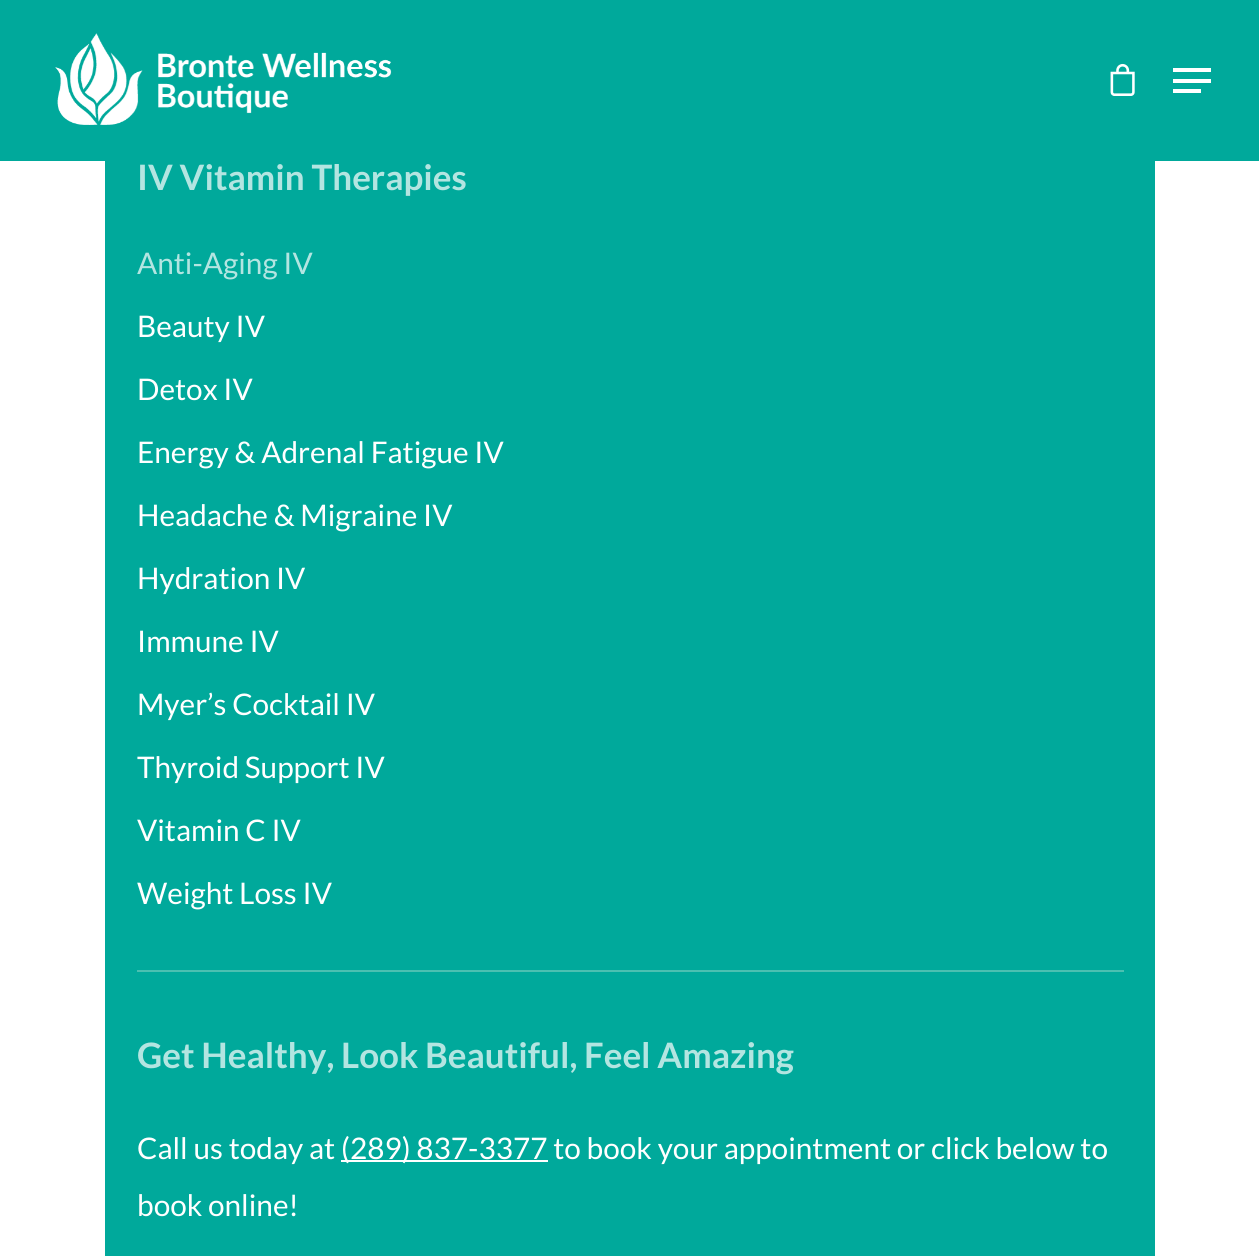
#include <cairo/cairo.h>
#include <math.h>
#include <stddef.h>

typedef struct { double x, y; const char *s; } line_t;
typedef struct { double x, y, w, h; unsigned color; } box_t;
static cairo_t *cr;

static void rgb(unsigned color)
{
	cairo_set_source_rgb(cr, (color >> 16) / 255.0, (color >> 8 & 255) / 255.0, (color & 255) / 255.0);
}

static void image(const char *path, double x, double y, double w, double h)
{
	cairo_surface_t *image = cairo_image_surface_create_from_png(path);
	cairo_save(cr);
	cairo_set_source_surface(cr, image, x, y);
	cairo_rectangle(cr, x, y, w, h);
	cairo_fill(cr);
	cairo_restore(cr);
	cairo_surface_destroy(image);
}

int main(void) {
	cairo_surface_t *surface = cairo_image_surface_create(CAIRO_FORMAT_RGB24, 1259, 1256);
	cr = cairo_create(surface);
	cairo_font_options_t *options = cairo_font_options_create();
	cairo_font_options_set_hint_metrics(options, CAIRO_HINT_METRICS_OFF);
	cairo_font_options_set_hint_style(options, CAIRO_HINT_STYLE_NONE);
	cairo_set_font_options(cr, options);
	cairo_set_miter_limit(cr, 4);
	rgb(0xffffff);
	cairo_paint(cr);
	rgb(0x00a99b);
	cairo_rectangle(cr, 0, 0, 1259, 161);
	cairo_fill(cr);
	image("img/1.png", 55, 33, 337, 92);
	image("img/2.png", 1110, 63, 25, 33);
	{
		static const box_t items[] = {
			{1173, 68, 38, 4, 0xffffff},
			{1173, 89, 28, 4, 0xffffff},
			{1173, 79, 38, 4, 0xffffff},
			{105, 161, 1050, 1095, 0x00a99b},
			{137, 970, 987, 2, 0x4bc0b1},
			{341, 1160, 207, 2, 0xffffff},
		};
		for (size_t i = 0; i < sizeof items / sizeof *items; i++) {
			rgb(items[i].color);
			cairo_rectangle(cr, items[i].x, items[i].y, items[i].w, items[i].h);
			cairo_fill(cr);
		}
	}
	cairo_select_font_face(cr, "Lato", CAIRO_FONT_SLANT_NORMAL, CAIRO_FONT_WEIGHT_BOLD);
	cairo_set_font_size(cr, 35);
	rgb(0xb3e5e1);
	cairo_move_to(cr, 137, 190);
	cairo_show_text(cr, "IV Vitamin Therapies");
	cairo_select_font_face(cr, "Lato", CAIRO_FONT_SLANT_NORMAL, CAIRO_FONT_WEIGHT_NORMAL);
	cairo_set_font_size(cr, 29.75);
	cairo_move_to(cr, 137, 274);
	cairo_show_text(cr, "Anti-Aging IV");
	rgb(0xffffff);
	{
		static const line_t items[] = {
			{137, 337, "Beauty IV"},
			{137, 400, "Detox IV"},
			{137, 463, "Energy & Adrenal Fatigue IV"},
			{137, 526, "Headache & Migraine IV"},
			{137, 589, "Hydration IV"},
			{137, 652, "Immune IV"},
			{137, 715, "Myer’s Cocktail IV"},
			{137, 778, "Thyroid Support IV"},
			{137, 841, "Vitamin C IV"},
			{137, 904, "Weight Loss IV"},
		};
		for (size_t i = 0; i < sizeof items / sizeof *items; i++) {
			cairo_move_to(cr, items[i].x, items[i].y);
			cairo_show_text(cr, items[i].s);
		}
	}
	cairo_select_font_face(cr, "Lato", CAIRO_FONT_SLANT_NORMAL, CAIRO_FONT_WEIGHT_BOLD);
	cairo_set_font_size(cr, 35);
	rgb(0xb3e5e1);
	cairo_move_to(cr, 137, 1068);
	cairo_show_text(cr, "Get Healthy, Look Beautiful, Feel Amazing");
	cairo_select_font_face(cr, "Lato", CAIRO_FONT_SLANT_NORMAL, CAIRO_FONT_WEIGHT_NORMAL);
	cairo_set_font_size(cr, 29.75);
	rgb(0xffffff);
	{
		static const line_t items[] = {
			{137, 1159, "Call us today at"},
			{341, 1159, "(289) 837-3377 to book your appointment or click below to"},
			{137, 1216, "book online!"},
		};
		for (size_t i = 0; i < sizeof items / sizeof *items; i++) {
			cairo_move_to(cr, items[i].x, items[i].y);
			cairo_show_text(cr, items[i].s);
		}
	}
	cairo_surface_write_to_png(surface, "page.png");
	cairo_font_options_destroy(options);
	cairo_destroy(cr);
	cairo_surface_destroy(surface);
	return 0;
}
